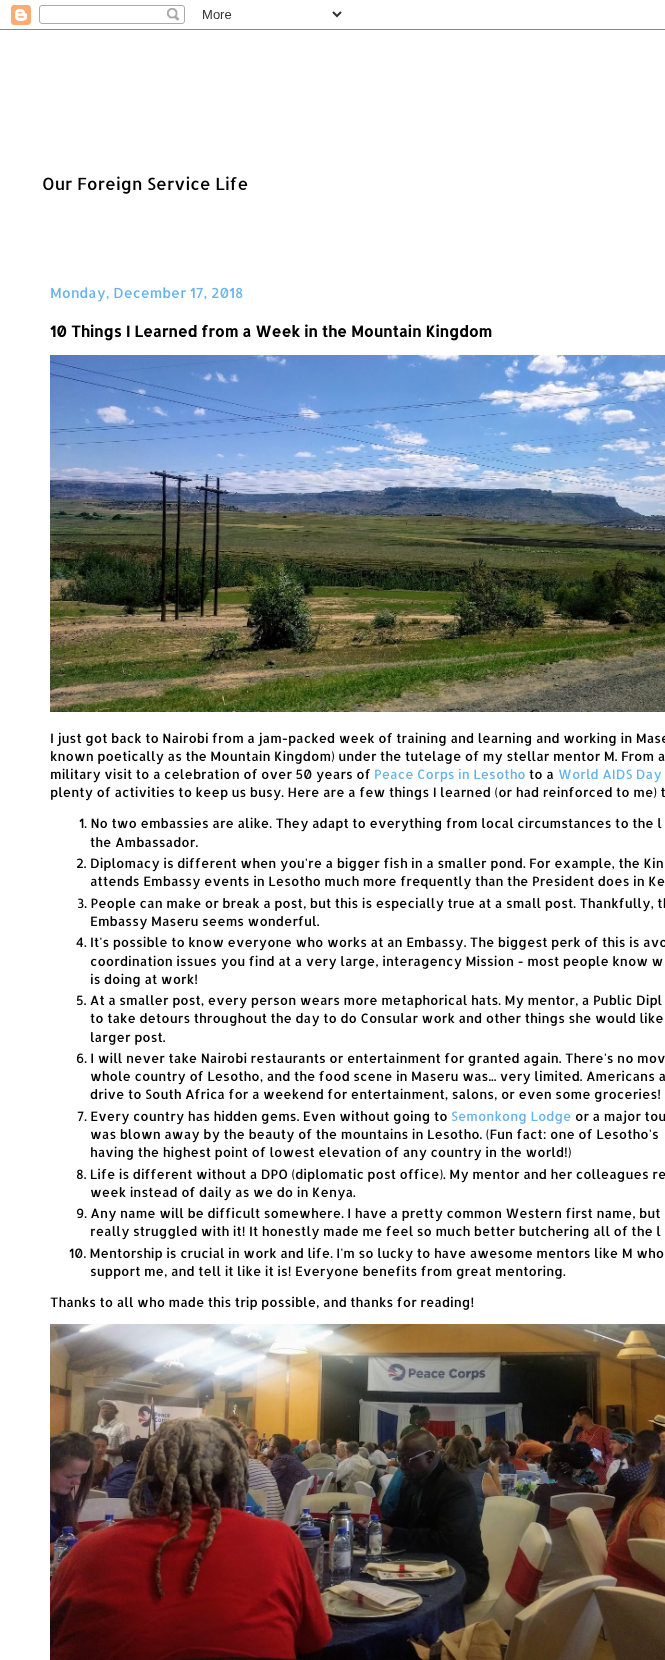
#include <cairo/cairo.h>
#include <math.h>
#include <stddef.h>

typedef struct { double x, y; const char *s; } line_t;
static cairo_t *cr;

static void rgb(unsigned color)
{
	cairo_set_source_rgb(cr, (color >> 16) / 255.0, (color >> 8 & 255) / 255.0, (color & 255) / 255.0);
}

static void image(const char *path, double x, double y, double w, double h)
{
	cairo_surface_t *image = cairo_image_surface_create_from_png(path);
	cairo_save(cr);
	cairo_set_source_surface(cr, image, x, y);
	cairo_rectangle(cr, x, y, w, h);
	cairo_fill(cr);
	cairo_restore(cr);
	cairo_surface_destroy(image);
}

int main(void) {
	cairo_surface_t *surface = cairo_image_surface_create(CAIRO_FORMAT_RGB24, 665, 1660);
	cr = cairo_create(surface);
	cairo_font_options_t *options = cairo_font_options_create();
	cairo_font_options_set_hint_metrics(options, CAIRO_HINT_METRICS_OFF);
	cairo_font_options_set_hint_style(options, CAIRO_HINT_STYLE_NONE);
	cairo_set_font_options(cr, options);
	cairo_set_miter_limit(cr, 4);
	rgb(0xffffff);
	cairo_paint(cr);
	image("img/1.png", 0, 5, 665, 25);
	image("img/2.png", 50, 355, 615, 357);
	image("img/3.png", 50, 1324, 615, 336);
	cairo_select_font_face(cr, "Allerta", CAIRO_FONT_SLANT_NORMAL, CAIRO_FONT_WEIGHT_NORMAL);
	cairo_set_font_size(cr, 16.9);
	rgb(0x000000);
	cairo_move_to(cr, 42, 190);
	cairo_show_text(cr, "Our Foreign Service Life");
	cairo_set_font_size(cr, 14);
	rgb(0x65b2ec);
	cairo_move_to(cr, 50, 298);
	cairo_show_text(cr, "Monday, December 17, 2018");
	cairo_select_font_face(cr, "Allerta", CAIRO_FONT_SLANT_NORMAL, CAIRO_FONT_WEIGHT_BOLD);
	cairo_set_font_size(cr, 15.2);
	rgb(0x000000);
	cairo_move_to(cr, 50, 337);
	cairo_show_text(cr, "10 Things I Learned from a Week in the Mountain Kingdom");
	cairo_select_font_face(cr, "Allerta", CAIRO_FONT_SLANT_NORMAL, CAIRO_FONT_WEIGHT_NORMAL);
	cairo_set_font_size(cr, 13);
	{
		static const line_t items[] = {
			{50, 743, "I just got back to Nairobi from a jam-packed week of training and learning and working in Mase"},
			{50, 761, "known poetically as the Mountain Kingdom) under the tutelage of my stellar mentor M. From a"},
			{50, 779, "military visit to a celebration of over 50 years of"},
		};
		for (size_t i = 0; i < sizeof items / sizeof *items; i++) {
			cairo_move_to(cr, items[i].x, items[i].y);
			cairo_show_text(cr, items[i].s);
		}
	}
	rgb(0x65b2ec);
	cairo_move_to(cr, 374, 779);
	cairo_show_text(cr, "Peace Corps in Lesotho");
	rgb(0x000000);
	cairo_move_to(cr, 529, 779);
	cairo_show_text(cr, "to a");
	rgb(0x65b2ec);
	cairo_move_to(cr, 558, 779);
	cairo_show_text(cr, "World AIDS Day");
	rgb(0x000000);
	{
		static const line_t items[] = {
			{50, 797, "plenty of activities to keep us busy. Here are a few things I learned (or had reinforced to me) t"},
			{79, 828, "1. No two embassies are alike. They adapt to everything from local circumstances to the l"},
			{90, 847, "the Ambassador."},
			{76, 868, "2. Diplomacy is different when you're a bigger fish in a smaller pond. For example, the Kin"},
			{90, 886, "attends Embassy events in Lesotho much more frequently than the President does in Ke"},
			{77, 908, "3. People can make or break a post, but this is especially true at a small post. Thankfully, th"},
			{90, 926, "Embassy Maseru seems wonderful."},
			{76, 947, "4. It's possible to know everyone who works at an Embassy. The biggest perk of this is avo"},
			{90, 966, "coordination issues you find at a very large, interagency Mission - most people know w"},
			{90, 984, "is doing at work!"},
			{76, 1005, "5. At a smaller post, every person wears more metaphorical hats. My mentor, a Public Dipl"},
			{90, 1023, "to take detours throughout the day to do Consular work and other things she would like"},
			{90, 1042, "larger post."},
			{76, 1063, "6. I will never take Nairobi restaurants or entertainment for granted again. There's no mov"},
			{90, 1081, "whole country of Lesotho, and the food scene in Maseru was... very limited. Americans a"},
			{90, 1099, "drive to South Africa for a weekend for entertainment, salons, or even some groceries!"},
			{77, 1121, "7. Every country has hidden gems. Even without going to"},
		};
		for (size_t i = 0; i < sizeof items / sizeof *items; i++) {
			cairo_move_to(cr, items[i].x, items[i].y);
			cairo_show_text(cr, items[i].s);
		}
	}
	rgb(0x65b2ec);
	cairo_move_to(cr, 451, 1121);
	cairo_show_text(cr, "Semonkong Lodge");
	rgb(0x000000);
	{
		static const line_t items[] = {
			{575, 1121, "or a major tou"},
			{90, 1139, "was blown away by the beauty of the mountains in Lesotho. (Fun fact: one of Lesotho's"},
			{90, 1157, "having the highest point of lowest elevation of any country in the world!)"},
			{76, 1179, "8. Life is different without a DPO (diplomatic post office). My mentor and her colleagues re"},
			{90, 1197, "week instead of daily as we do in Kenya."},
			{76, 1218, "9. Any name will be difficult somewhere. I have a pretty common Western first name, but"},
			{90, 1236, "really struggled with it! It honestly made me feel so much better butchering all of the l"},
			{69, 1258, "10. Mentorship is crucial in work and life. I'm so lucky to have awesome mentors like M who"},
			{90, 1276, "support me, and tell it like it is! Everyone benefits from great mentoring."},
			{50, 1307, "Thanks to all who made this trip possible, and thanks for reading!"},
		};
		for (size_t i = 0; i < sizeof items / sizeof *items; i++) {
			cairo_move_to(cr, items[i].x, items[i].y);
			cairo_show_text(cr, items[i].s);
		}
	}
	cairo_surface_write_to_png(surface, "page.png");
	cairo_font_options_destroy(options);
	cairo_destroy(cr);
	cairo_surface_destroy(surface);
	return 0;
}
